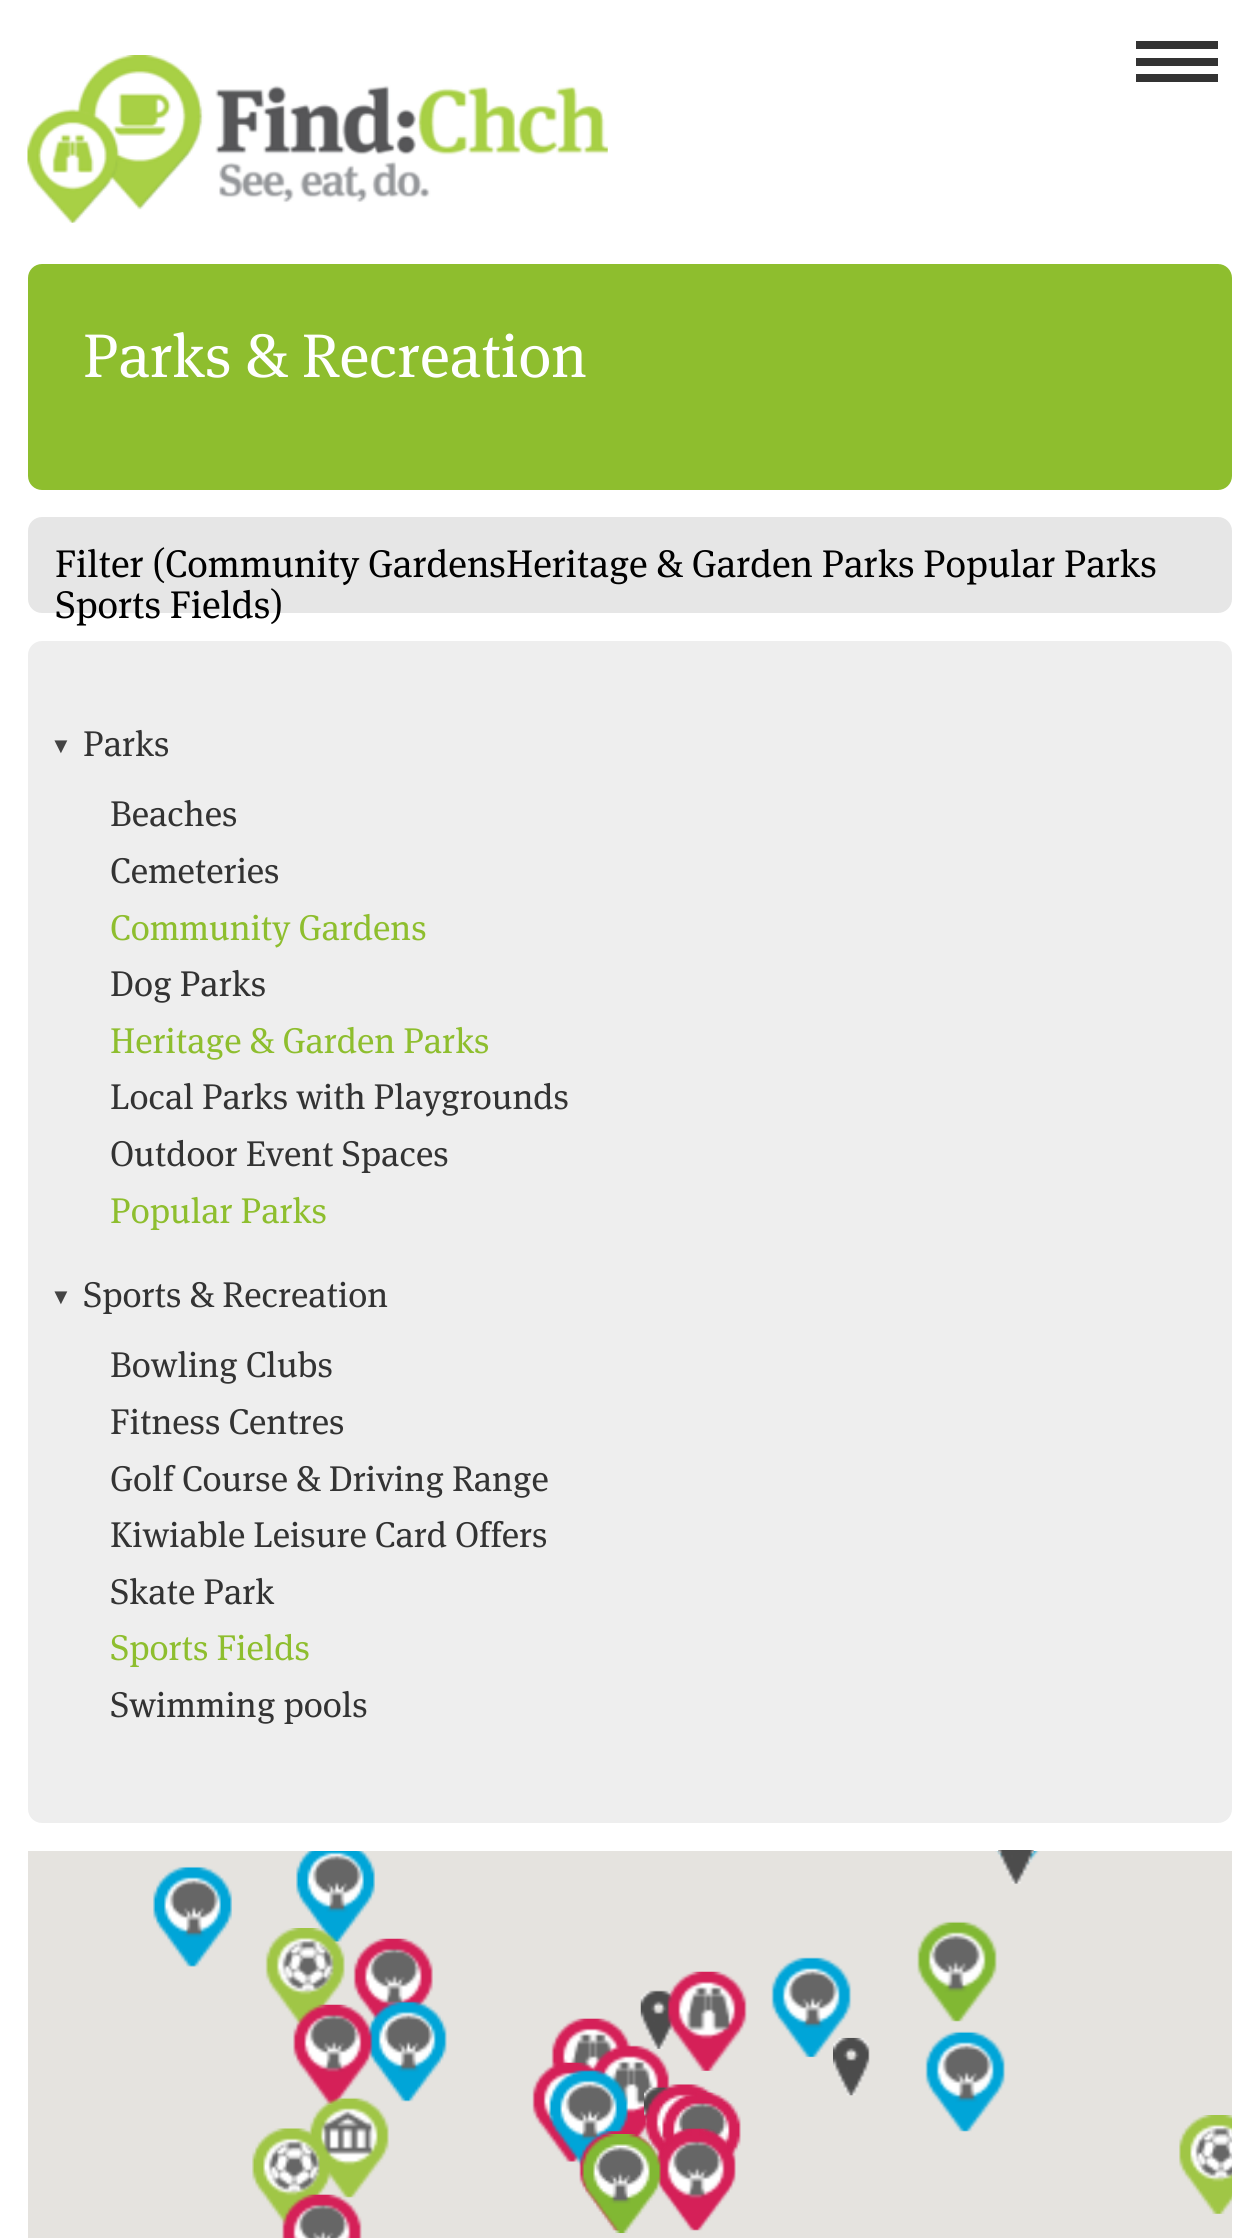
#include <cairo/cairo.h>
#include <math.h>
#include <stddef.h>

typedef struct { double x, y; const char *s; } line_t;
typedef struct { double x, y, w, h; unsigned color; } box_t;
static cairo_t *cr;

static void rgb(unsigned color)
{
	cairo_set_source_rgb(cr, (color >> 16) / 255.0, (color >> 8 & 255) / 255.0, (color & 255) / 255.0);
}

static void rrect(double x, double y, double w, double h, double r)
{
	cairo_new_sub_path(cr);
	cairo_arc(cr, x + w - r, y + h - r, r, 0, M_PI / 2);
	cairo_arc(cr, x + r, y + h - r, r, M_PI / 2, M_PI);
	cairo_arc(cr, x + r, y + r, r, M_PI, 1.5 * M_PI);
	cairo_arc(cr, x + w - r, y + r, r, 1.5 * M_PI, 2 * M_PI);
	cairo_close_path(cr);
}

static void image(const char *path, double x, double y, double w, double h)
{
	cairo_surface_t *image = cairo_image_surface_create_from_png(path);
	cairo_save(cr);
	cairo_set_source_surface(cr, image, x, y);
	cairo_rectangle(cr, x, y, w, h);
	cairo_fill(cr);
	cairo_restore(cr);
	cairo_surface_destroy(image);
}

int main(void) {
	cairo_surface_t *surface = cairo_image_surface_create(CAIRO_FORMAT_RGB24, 1259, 2238);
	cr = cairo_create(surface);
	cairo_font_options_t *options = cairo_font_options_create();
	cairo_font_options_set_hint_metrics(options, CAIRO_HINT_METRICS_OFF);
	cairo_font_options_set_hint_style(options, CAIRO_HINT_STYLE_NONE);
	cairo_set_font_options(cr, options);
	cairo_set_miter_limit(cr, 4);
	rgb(0xffffff);
	cairo_paint(cr);
	image("img/1.png", 27, 55, 581, 168);
	{
		static const box_t items[] = {
			{1136, 41, 82, 8, 0x333333},
			{1136, 74, 82, 8, 0x333333},
			{1136, 58, 82, 8, 0x333333},
		};
		for (size_t i = 0; i < sizeof items / sizeof *items; i++) {
			rgb(items[i].color);
			cairo_rectangle(cr, items[i].x, items[i].y, items[i].w, items[i].h);
			cairo_fill(cr);
		}
	}
	rgb(0x8ebe2e);
	rrect(28, 264, 1204, 226, 14);
	cairo_fill(cr);
	rgb(0xe6e6e6);
	rrect(28, 517, 1204, 96, 14);
	cairo_fill(cr);
	rgb(0xeeeeee);
	rrect(28, 641, 1204, 1182, 14);
	cairo_fill(cr);
	rgb(0xe5e3df);
	cairo_rectangle(cr, 28, 1851, 1204, 387);
	cairo_fill(cr);
	image("img/2.png", 296, 1851, 79, 91);
	image("img/4.png", 995, 1851, 45, 22);
	image("img/3.png", 998, 1850, 36, 34);
	image("img/5.png", 153, 1866, 79, 101);
	image("img/6.png", 265, 1928, 80, 99);
	image("img/7.png", 353, 1938, 80, 82);
	image("img/8.png", 640, 1990, 35, 59);
	image("img/9.png", 667, 1971, 80, 100);
	image("img/10.png", 771, 1957, 81, 101);
	image("img/11.png", 917, 1921, 80, 101);
	image("img/13.png", 367, 2001, 80, 101);
	image("img/12.png", 293, 2004, 80, 100);
	image("img/14.png", 551, 2018, 80, 57);
	image("img/15.png", 833, 2037, 37, 59);
	image("img/16.png", 925, 2031, 81, 101);
	image("img/18.png", 590, 2045, 80, 96);
	image("img/17.png", 532, 2062, 77, 100);
	image("img/19.png", 549, 2070, 79, 98);
	image("img/23.png", 644, 2086, 33, 60);
	image("img/20.png", 645, 2084, 76, 75);
	image("img/22.png", 309, 2097, 80, 101);
	image("img/21.png", 252, 2128, 79, 98);
	image("img/24.png", 662, 2092, 79, 68);
	image("img/25.png", 1179, 2115, 53, 99);
	image("img/27.png", 656, 2128, 80, 100);
	image("img/30.png", 656, 2131, 80, 100);
	image("img/26.png", 579, 2131, 79, 100);
	image("img/28.png", 281, 2194, 81, 44);
	image("img/29.png", 582, 2134, 79, 99);
	cairo_select_font_face(cr, "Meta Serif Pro", CAIRO_FONT_SLANT_NORMAL, CAIRO_FONT_WEIGHT_NORMAL);
	cairo_set_font_size(cr, 61.5);
	rgb(0xffffff);
	cairo_move_to(cr, 83, 377);
	cairo_show_text(cr, "Parks & Recreation");
	cairo_set_font_size(cr, 38.5);
	rgb(0x000000);
	cairo_move_to(cr, 55, 577);
	cairo_show_text(cr, "Filter (Community GardensHeritage & Garden Parks Popular Parks");
	cairo_move_to(cr, 55, 618);
	cairo_show_text(cr, "Sports Fields)");
	cairo_select_font_face(cr, "Liberation Serif", CAIRO_FONT_SLANT_NORMAL, CAIRO_FONT_WEIGHT_NORMAL);
	cairo_set_font_size(cr, 22);
	rgb(0x444444);
	cairo_move_to(cr, 50, 753);
	cairo_show_text(cr, "▼");
	cairo_select_font_face(cr, "Meta Serif Pro", CAIRO_FONT_SLANT_NORMAL, CAIRO_FONT_WEIGHT_NORMAL);
	cairo_set_font_size(cr, 35.75);
	rgb(0x333333);
	{
		static const line_t items[] = {
			{83, 756, "Parks"},
			{110, 826, "Beaches"},
			{110, 883, "Cemeteries"},
		};
		for (size_t i = 0; i < sizeof items / sizeof *items; i++) {
			cairo_move_to(cr, items[i].x, items[i].y);
			cairo_show_text(cr, items[i].s);
		}
	}
	rgb(0x8ebe2e);
	cairo_move_to(cr, 110, 940);
	cairo_show_text(cr, "Community Gardens");
	rgb(0x333333);
	cairo_move_to(cr, 110, 996);
	cairo_show_text(cr, "Dog Parks");
	rgb(0x8ebe2e);
	cairo_move_to(cr, 110, 1053);
	cairo_show_text(cr, "Heritage & Garden Parks");
	rgb(0x333333);
	cairo_move_to(cr, 110, 1109);
	cairo_show_text(cr, "Local Parks with Playgrounds");
	cairo_move_to(cr, 110, 1166);
	cairo_show_text(cr, "Outdoor Event Spaces");
	rgb(0x8ebe2e);
	cairo_move_to(cr, 110, 1223);
	cairo_show_text(cr, "Popular Parks");
	cairo_select_font_face(cr, "Liberation Serif", CAIRO_FONT_SLANT_NORMAL, CAIRO_FONT_WEIGHT_NORMAL);
	cairo_set_font_size(cr, 22);
	rgb(0x444444);
	cairo_move_to(cr, 50, 1304);
	cairo_show_text(cr, "▼");
	cairo_select_font_face(cr, "Meta Serif Pro", CAIRO_FONT_SLANT_NORMAL, CAIRO_FONT_WEIGHT_NORMAL);
	cairo_set_font_size(cr, 35.75);
	rgb(0x333333);
	{
		static const line_t items[] = {
			{83, 1307, "Sports & Recreation"},
			{110, 1377, "Bowling Clubs"},
			{110, 1434, "Fitness Centres"},
			{110, 1491, "Golf Course & Driving Range"},
			{110, 1547, "Kiwiable Leisure Card Offers"},
			{110, 1604, "Skate Park"},
		};
		for (size_t i = 0; i < sizeof items / sizeof *items; i++) {
			cairo_move_to(cr, items[i].x, items[i].y);
			cairo_show_text(cr, items[i].s);
		}
	}
	rgb(0x8ebe2e);
	cairo_move_to(cr, 110, 1660);
	cairo_show_text(cr, "Sports Fields");
	rgb(0x333333);
	cairo_move_to(cr, 110, 1717);
	cairo_show_text(cr, "Swimming pools");
	cairo_surface_write_to_png(surface, "page.png");
	cairo_font_options_destroy(options);
	cairo_destroy(cr);
	cairo_surface_destroy(surface);
	return 0;
}
